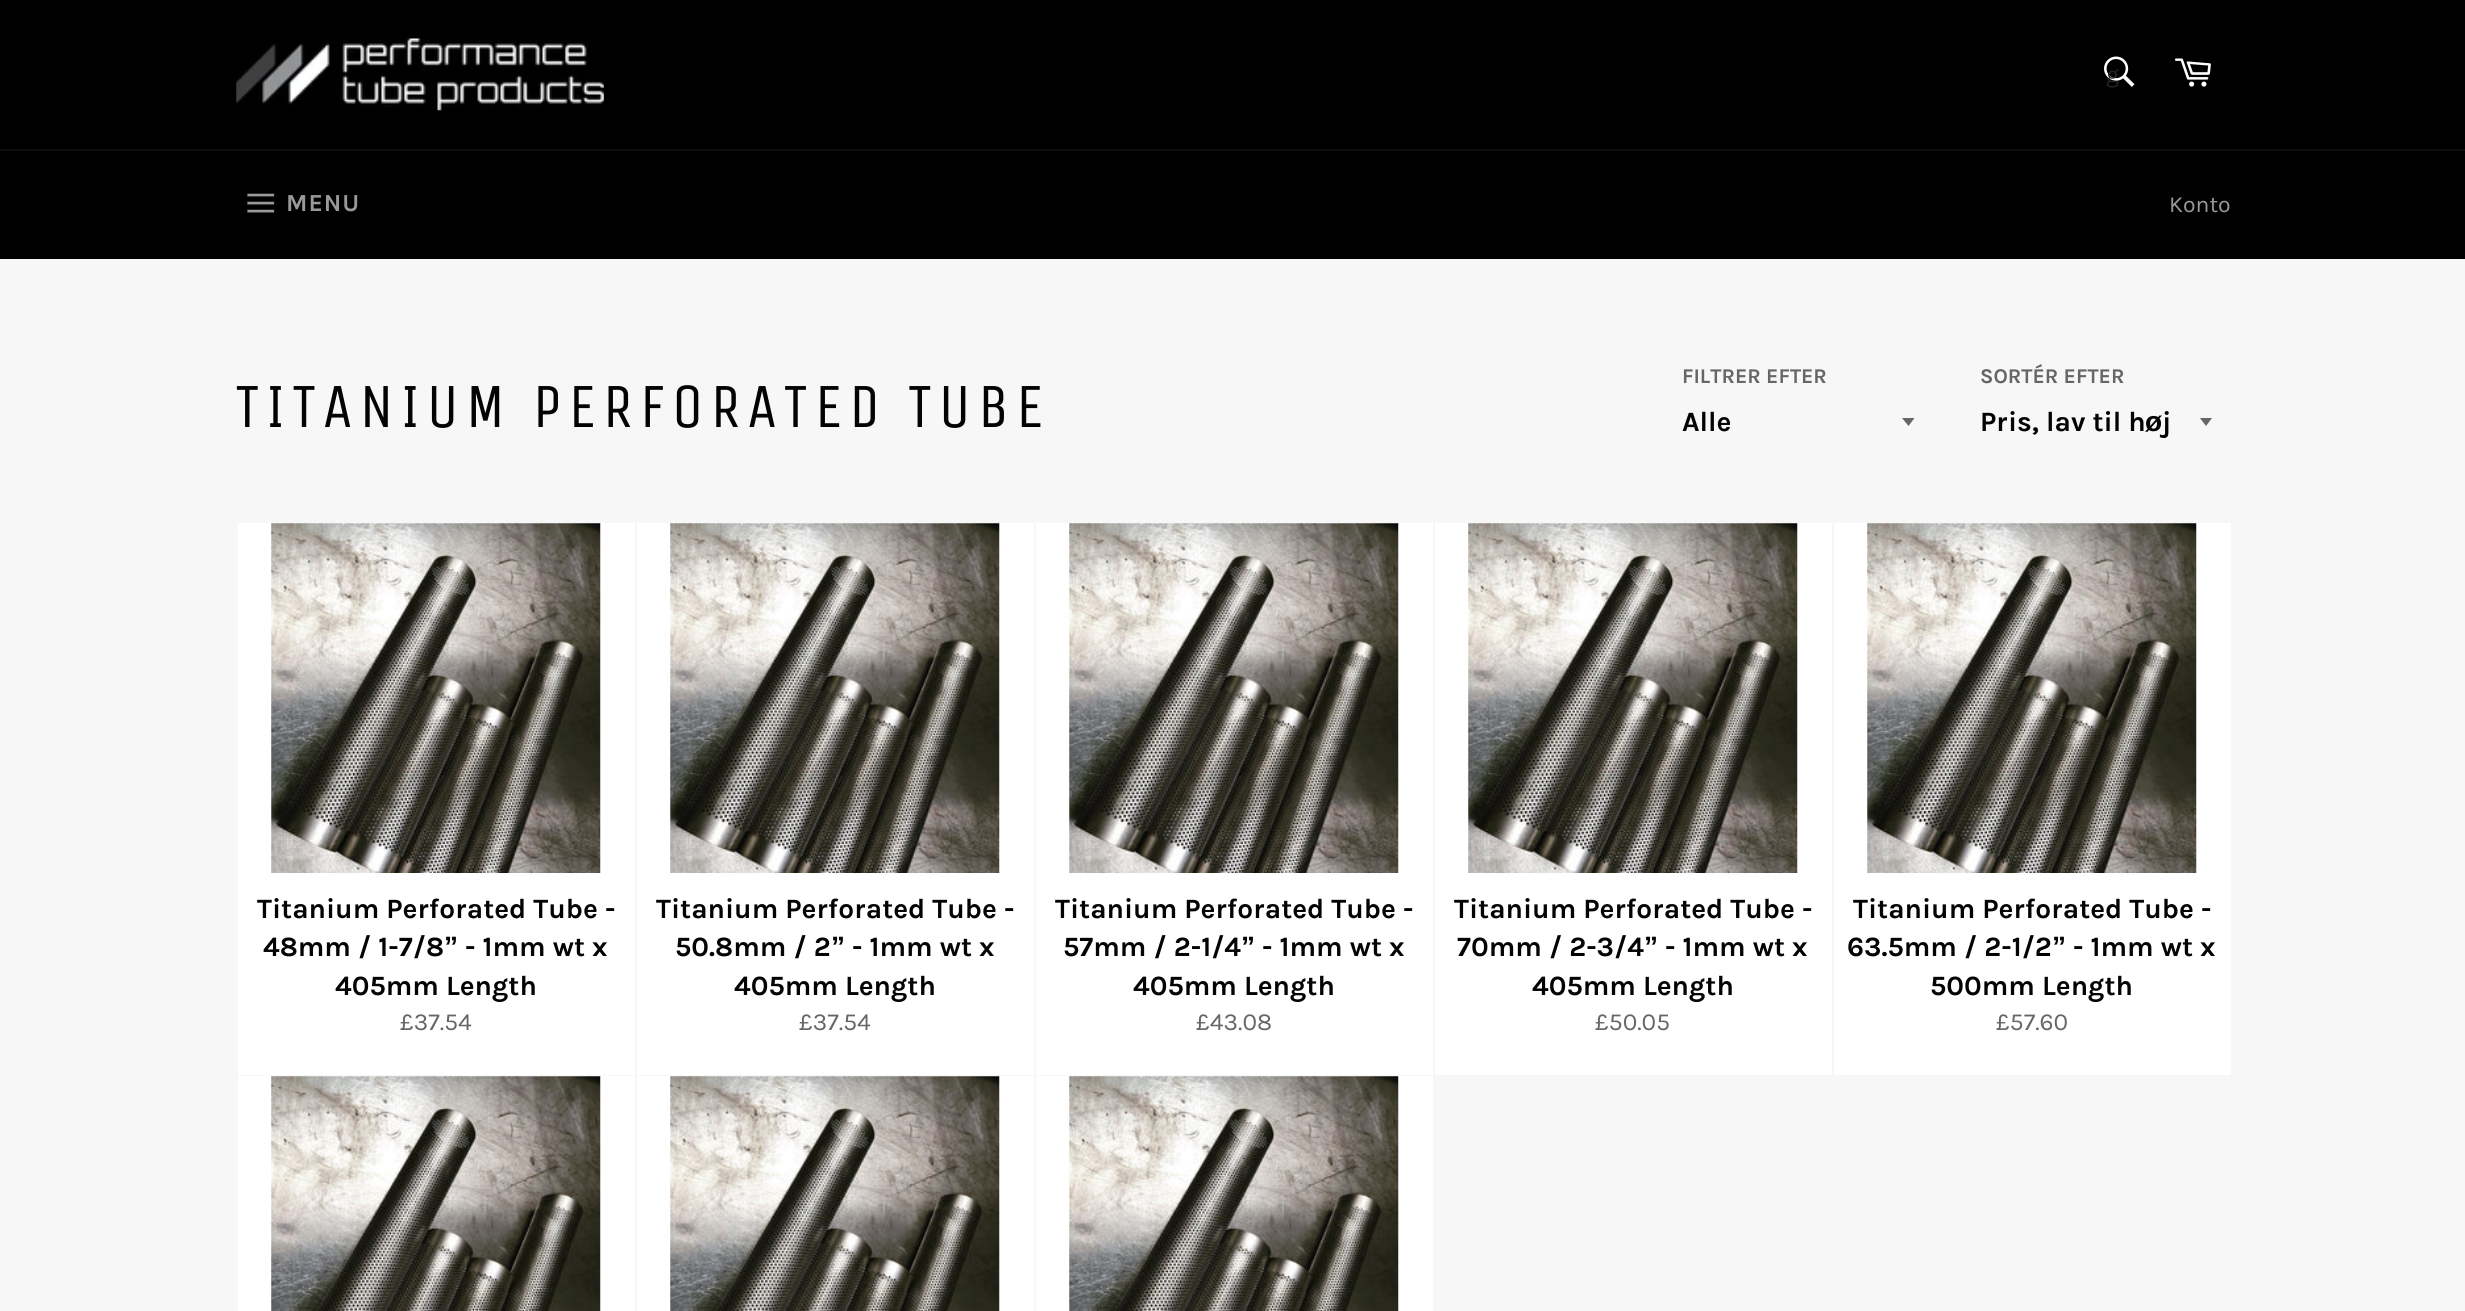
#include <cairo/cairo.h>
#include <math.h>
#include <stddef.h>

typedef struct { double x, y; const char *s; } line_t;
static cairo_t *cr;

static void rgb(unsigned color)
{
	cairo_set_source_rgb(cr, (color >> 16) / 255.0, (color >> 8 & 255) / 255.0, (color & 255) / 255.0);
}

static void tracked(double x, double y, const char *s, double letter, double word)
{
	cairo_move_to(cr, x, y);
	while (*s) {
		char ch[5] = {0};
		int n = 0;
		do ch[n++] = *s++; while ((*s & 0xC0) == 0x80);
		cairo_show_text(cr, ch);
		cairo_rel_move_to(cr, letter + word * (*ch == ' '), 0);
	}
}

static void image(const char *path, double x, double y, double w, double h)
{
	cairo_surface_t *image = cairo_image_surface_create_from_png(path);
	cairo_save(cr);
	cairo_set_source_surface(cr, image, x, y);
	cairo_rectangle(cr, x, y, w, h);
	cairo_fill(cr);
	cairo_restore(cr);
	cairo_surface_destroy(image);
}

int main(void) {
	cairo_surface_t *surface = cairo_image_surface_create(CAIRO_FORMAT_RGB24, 2465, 1311);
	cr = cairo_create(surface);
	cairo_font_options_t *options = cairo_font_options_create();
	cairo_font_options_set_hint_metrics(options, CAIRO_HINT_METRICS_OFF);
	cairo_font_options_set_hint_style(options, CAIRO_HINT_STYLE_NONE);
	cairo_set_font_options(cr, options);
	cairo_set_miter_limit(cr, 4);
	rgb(0xf7f7f7);
	cairo_paint(cr);
	rgb(0x000000);
	cairo_rectangle(cr, 0, 0, 2465, 149);
	cairo_fill(cr);
	image("img/1.png", 236, 38, 368, 73);
	image("img/2.png", 2104, 56, 31, 31);
	image("img/3.png", 2174, 58, 37, 29);
	cairo_rectangle(cr, 0, 151, 2465, 108);
	cairo_fill(cr);
	rgb(0x0d0d0d);
	cairo_rectangle(cr, 0, 149, 2465, 2);
	cairo_fill(cr);
	image("img/4.png", 247, 193, 28, 20);
	rgb(0x666666);
	cairo_new_path(cr);
	cairo_move_to(cr, 1902, 418);
	cairo_line_to(cr, 1908.5, 426);
	cairo_line_to(cr, 1914.5, 418);
	cairo_close_path(cr);
	cairo_fill(cr);
	cairo_new_path(cr);
	cairo_move_to(cr, 2200, 418);
	cairo_line_to(cr, 2206, 426);
	cairo_line_to(cr, 2212, 418);
	cairo_close_path(cr);
	cairo_fill(cr);
	rgb(0xffffff);
	cairo_rectangle(cr, 238, 523, 397, 552);
	cairo_fill(cr);
	image("img/5.png", 271, 523, 330, 350);
	cairo_rectangle(cr, 637, 523, 397, 552);
	cairo_fill(cr);
	image("img/6.png", 670, 523, 330, 350);
	cairo_rectangle(cr, 1036, 523, 397, 552);
	cairo_fill(cr);
	image("img/5.png", 1069, 523, 330, 350);
	cairo_rectangle(cr, 1435, 523, 397, 552);
	cairo_fill(cr);
	image("img/5.png", 1468, 523, 330, 350);
	cairo_rectangle(cr, 1834, 523, 397, 552);
	cairo_fill(cr);
	image("img/6.png", 1867, 523, 330, 350);
	cairo_rectangle(cr, 238, 1076, 397, 235);
	cairo_fill(cr);
	image("img/7.png", 271, 1076, 330, 235);
	cairo_rectangle(cr, 637, 1076, 397, 235);
	cairo_fill(cr);
	image("img/8.png", 670, 1076, 330, 235);
	cairo_rectangle(cr, 1036, 1076, 397, 235);
	cairo_fill(cr);
	image("img/7.png", 1069, 1076, 330, 235);
	cairo_select_font_face(cr, "Karla", CAIRO_FONT_SLANT_NORMAL, CAIRO_FONT_WEIGHT_NORMAL);
	cairo_set_font_size(cr, 23);
	rgb(0x252525);
	cairo_move_to(cr, 2106, 82);
	cairo_show_text(cr, "g");
	cairo_select_font_face(cr, "Karla", CAIRO_FONT_SLANT_NORMAL, CAIRO_FONT_WEIGHT_BOLD);
	cairo_set_font_size(cr, 24.5);
	rgb(0x999999);
	tracked(286, 211, "MENU", 1, 0);
	cairo_select_font_face(cr, "Karla", CAIRO_FONT_SLANT_NORMAL, CAIRO_FONT_WEIGHT_NORMAL);
	cairo_set_font_size(cr, 23);
	cairo_move_to(cr, 2169, 212);
	cairo_show_text(cr, "Konto");
	cairo_select_font_face(cr, "Unica One", CAIRO_FONT_SLANT_NORMAL, CAIRO_FONT_WEIGHT_NORMAL);
	cairo_set_font_size(cr, 63);
	rgb(0x030303);
	tracked(235, 427, "TITANIUM PERFORATED TUBE", 6.3, 0);
	cairo_select_font_face(cr, "Karla", CAIRO_FONT_SLANT_NORMAL, CAIRO_FONT_WEIGHT_BOLD);
	cairo_set_font_size(cr, 21);
	rgb(0x666666);
	cairo_move_to(cr, 1682, 383);
	cairo_show_text(cr, "FILTRER EFTER");
	cairo_set_font_size(cr, 28);
	rgb(0x030303);
	cairo_move_to(cr, 1682, 431);
	cairo_show_text(cr, "Alle");
	cairo_set_font_size(cr, 21);
	rgb(0x666666);
	cairo_move_to(cr, 1980, 383);
	cairo_show_text(cr, "SORTÉR EFTER");
	cairo_set_font_size(cr, 28);
	rgb(0x030303);
	cairo_move_to(cr, 1980, 431);
	cairo_show_text(cr, "Pris, lav til h");
	cairo_select_font_face(cr, "Liberation Sans", CAIRO_FONT_SLANT_NORMAL, CAIRO_FONT_WEIGHT_BOLD);
	cairo_move_to(cr, 2145, 431);
	cairo_show_text(cr, "ø");
	cairo_select_font_face(cr, "Karla", CAIRO_FONT_SLANT_NORMAL, CAIRO_FONT_WEIGHT_BOLD);
	{
		static const line_t items[] = {
			{2162, 431, "j"},
			{257, 918, "Titanium Perforated Tube -"},
			{263, 956, "48mm / 1-7/8"},
		};
		for (size_t i = 0; i < sizeof items / sizeof *items; i++) {
			cairo_move_to(cr, items[i].x, items[i].y);
			cairo_show_text(cr, items[i].s);
		}
	}
	cairo_select_font_face(cr, "Liberation Sans", CAIRO_FONT_SLANT_NORMAL, CAIRO_FONT_WEIGHT_BOLD);
	cairo_move_to(cr, 444, 956);
	cairo_show_text(cr, "”");
	cairo_select_font_face(cr, "Karla", CAIRO_FONT_SLANT_NORMAL, CAIRO_FONT_WEIGHT_BOLD);
	cairo_move_to(cr, 465, 956);
	cairo_show_text(cr, "- 1mm wt x");
	cairo_move_to(cr, 335, 995);
	cairo_show_text(cr, "405mm Length");
	cairo_select_font_face(cr, "Karla", CAIRO_FONT_SLANT_NORMAL, CAIRO_FONT_WEIGHT_NORMAL);
	cairo_set_font_size(cr, 24.5);
	rgb(0x666666);
	cairo_move_to(cr, 400, 1030);
	cairo_show_text(cr, "£37.54");
	cairo_select_font_face(cr, "Karla", CAIRO_FONT_SLANT_NORMAL, CAIRO_FONT_WEIGHT_BOLD);
	cairo_set_font_size(cr, 28);
	rgb(0x030303);
	cairo_move_to(cr, 656, 918);
	cairo_show_text(cr, "Titanium Perforated Tube -");
	cairo_move_to(cr, 675, 956);
	cairo_show_text(cr, "50.8mm / 2");
	cairo_select_font_face(cr, "Liberation Sans", CAIRO_FONT_SLANT_NORMAL, CAIRO_FONT_WEIGHT_BOLD);
	cairo_move_to(cr, 831, 956);
	cairo_show_text(cr, "”");
	cairo_select_font_face(cr, "Karla", CAIRO_FONT_SLANT_NORMAL, CAIRO_FONT_WEIGHT_BOLD);
	cairo_move_to(cr, 852, 956);
	cairo_show_text(cr, "- 1mm wt x");
	cairo_move_to(cr, 734, 995);
	cairo_show_text(cr, "405mm Length");
	cairo_select_font_face(cr, "Karla", CAIRO_FONT_SLANT_NORMAL, CAIRO_FONT_WEIGHT_NORMAL);
	cairo_set_font_size(cr, 24.5);
	rgb(0x666666);
	cairo_move_to(cr, 799, 1030);
	cairo_show_text(cr, "£37.54");
	cairo_select_font_face(cr, "Karla", CAIRO_FONT_SLANT_NORMAL, CAIRO_FONT_WEIGHT_BOLD);
	cairo_set_font_size(cr, 28);
	rgb(0x030303);
	cairo_move_to(cr, 1055, 918);
	cairo_show_text(cr, "Titanium Perforated Tube -");
	cairo_move_to(cr, 1063, 956);
	cairo_show_text(cr, "57mm / 2-1/4");
	cairo_select_font_face(cr, "Liberation Sans", CAIRO_FONT_SLANT_NORMAL, CAIRO_FONT_WEIGHT_BOLD);
	cairo_move_to(cr, 1241, 956);
	cairo_show_text(cr, "”");
	cairo_select_font_face(cr, "Karla", CAIRO_FONT_SLANT_NORMAL, CAIRO_FONT_WEIGHT_BOLD);
	cairo_move_to(cr, 1262, 956);
	cairo_show_text(cr, "- 1mm wt x");
	cairo_move_to(cr, 1133, 995);
	cairo_show_text(cr, "405mm Length");
	cairo_select_font_face(cr, "Karla", CAIRO_FONT_SLANT_NORMAL, CAIRO_FONT_WEIGHT_NORMAL);
	cairo_set_font_size(cr, 24.5);
	rgb(0x666666);
	cairo_move_to(cr, 1196, 1030);
	cairo_show_text(cr, "£43.08");
	cairo_select_font_face(cr, "Karla", CAIRO_FONT_SLANT_NORMAL, CAIRO_FONT_WEIGHT_BOLD);
	cairo_set_font_size(cr, 28);
	rgb(0x030303);
	cairo_move_to(cr, 1454, 918);
	cairo_show_text(cr, "Titanium Perforated Tube -");
	cairo_move_to(cr, 1457, 956);
	cairo_show_text(cr, "70mm / 2-3/4");
	cairo_select_font_face(cr, "Liberation Sans", CAIRO_FONT_SLANT_NORMAL, CAIRO_FONT_WEIGHT_BOLD);
	cairo_move_to(cr, 1644, 956);
	cairo_show_text(cr, "”");
	cairo_select_font_face(cr, "Karla", CAIRO_FONT_SLANT_NORMAL, CAIRO_FONT_WEIGHT_BOLD);
	cairo_move_to(cr, 1665, 956);
	cairo_show_text(cr, "- 1mm wt x");
	cairo_move_to(cr, 1532, 995);
	cairo_show_text(cr, "405mm Length");
	cairo_select_font_face(cr, "Karla", CAIRO_FONT_SLANT_NORMAL, CAIRO_FONT_WEIGHT_NORMAL);
	cairo_set_font_size(cr, 24.5);
	rgb(0x666666);
	cairo_move_to(cr, 1595, 1030);
	cairo_show_text(cr, "£50.05");
	cairo_select_font_face(cr, "Karla", CAIRO_FONT_SLANT_NORMAL, CAIRO_FONT_WEIGHT_BOLD);
	cairo_set_font_size(cr, 28);
	rgb(0x030303);
	cairo_move_to(cr, 1853, 918);
	cairo_show_text(cr, "Titanium Perforated Tube -");
	cairo_move_to(cr, 1847, 956);
	cairo_show_text(cr, "63.5mm / 2-1/2");
	cairo_select_font_face(cr, "Liberation Sans", CAIRO_FONT_SLANT_NORMAL, CAIRO_FONT_WEIGHT_BOLD);
	cairo_move_to(cr, 2052, 956);
	cairo_show_text(cr, "”");
	cairo_select_font_face(cr, "Karla", CAIRO_FONT_SLANT_NORMAL, CAIRO_FONT_WEIGHT_BOLD);
	cairo_move_to(cr, 2073, 956);
	cairo_show_text(cr, "- 1mm wt x");
	cairo_move_to(cr, 1930, 995);
	cairo_show_text(cr, "500mm Length");
	cairo_select_font_face(cr, "Karla", CAIRO_FONT_SLANT_NORMAL, CAIRO_FONT_WEIGHT_NORMAL);
	cairo_set_font_size(cr, 24.5);
	rgb(0x666666);
	cairo_move_to(cr, 1996, 1030);
	cairo_show_text(cr, "£57.60");
	cairo_surface_write_to_png(surface, "page.png");
	cairo_font_options_destroy(options);
	cairo_destroy(cr);
	cairo_surface_destroy(surface);
	return 0;
}
